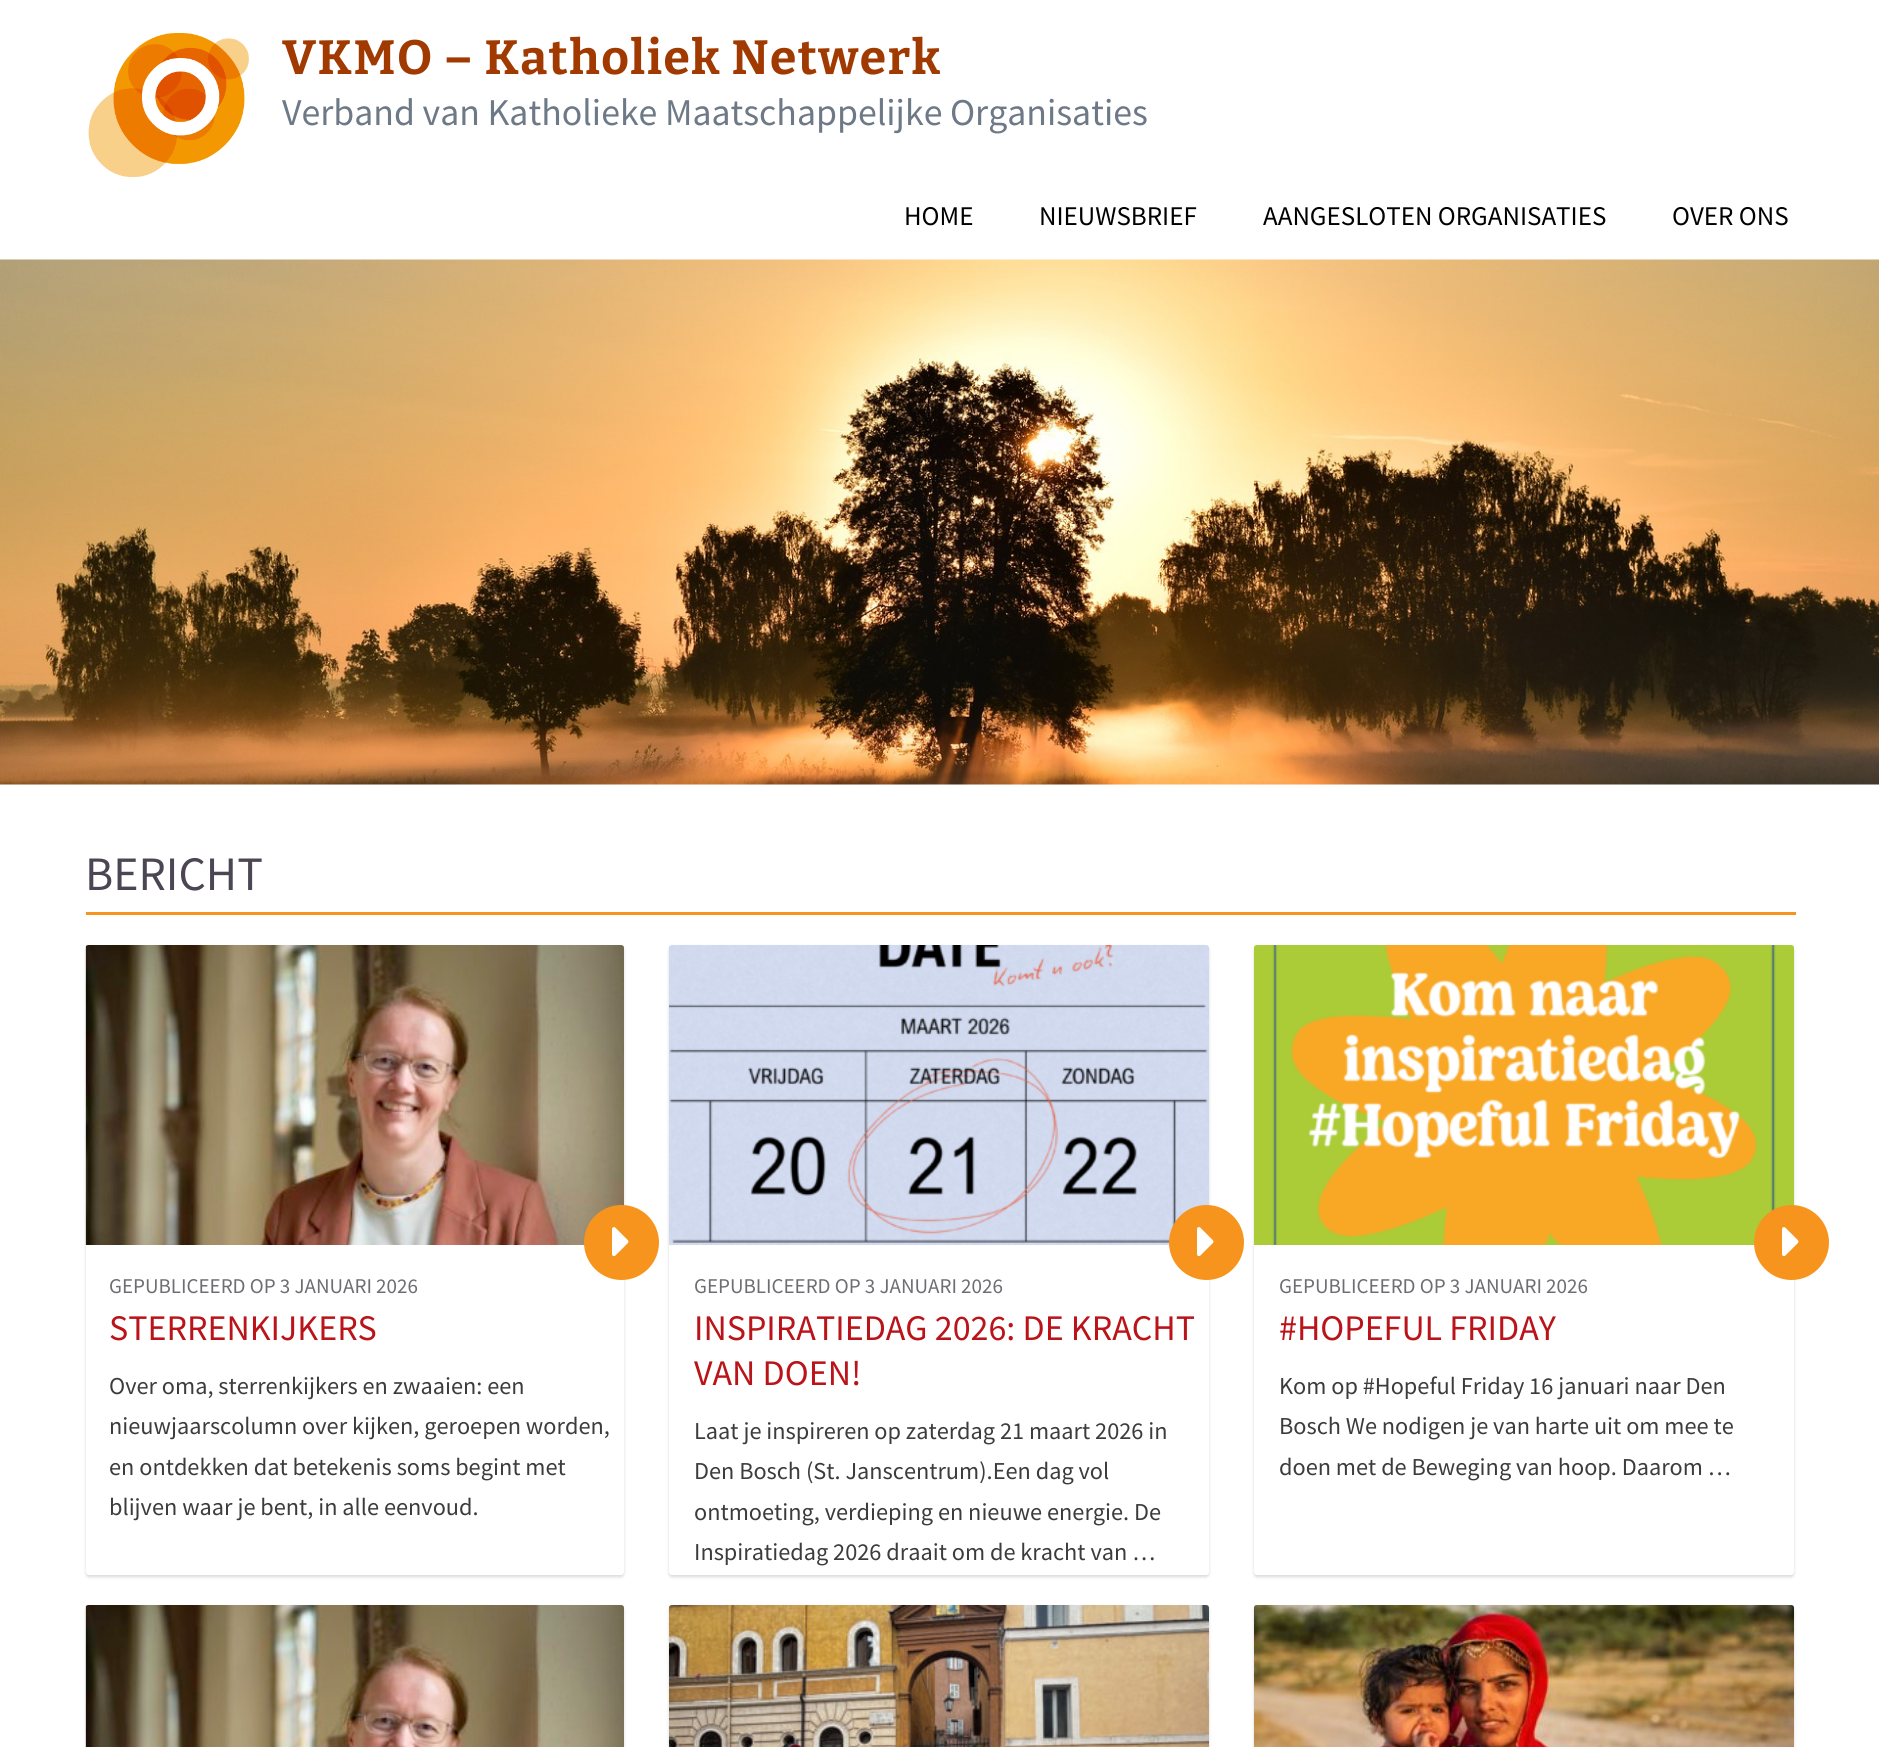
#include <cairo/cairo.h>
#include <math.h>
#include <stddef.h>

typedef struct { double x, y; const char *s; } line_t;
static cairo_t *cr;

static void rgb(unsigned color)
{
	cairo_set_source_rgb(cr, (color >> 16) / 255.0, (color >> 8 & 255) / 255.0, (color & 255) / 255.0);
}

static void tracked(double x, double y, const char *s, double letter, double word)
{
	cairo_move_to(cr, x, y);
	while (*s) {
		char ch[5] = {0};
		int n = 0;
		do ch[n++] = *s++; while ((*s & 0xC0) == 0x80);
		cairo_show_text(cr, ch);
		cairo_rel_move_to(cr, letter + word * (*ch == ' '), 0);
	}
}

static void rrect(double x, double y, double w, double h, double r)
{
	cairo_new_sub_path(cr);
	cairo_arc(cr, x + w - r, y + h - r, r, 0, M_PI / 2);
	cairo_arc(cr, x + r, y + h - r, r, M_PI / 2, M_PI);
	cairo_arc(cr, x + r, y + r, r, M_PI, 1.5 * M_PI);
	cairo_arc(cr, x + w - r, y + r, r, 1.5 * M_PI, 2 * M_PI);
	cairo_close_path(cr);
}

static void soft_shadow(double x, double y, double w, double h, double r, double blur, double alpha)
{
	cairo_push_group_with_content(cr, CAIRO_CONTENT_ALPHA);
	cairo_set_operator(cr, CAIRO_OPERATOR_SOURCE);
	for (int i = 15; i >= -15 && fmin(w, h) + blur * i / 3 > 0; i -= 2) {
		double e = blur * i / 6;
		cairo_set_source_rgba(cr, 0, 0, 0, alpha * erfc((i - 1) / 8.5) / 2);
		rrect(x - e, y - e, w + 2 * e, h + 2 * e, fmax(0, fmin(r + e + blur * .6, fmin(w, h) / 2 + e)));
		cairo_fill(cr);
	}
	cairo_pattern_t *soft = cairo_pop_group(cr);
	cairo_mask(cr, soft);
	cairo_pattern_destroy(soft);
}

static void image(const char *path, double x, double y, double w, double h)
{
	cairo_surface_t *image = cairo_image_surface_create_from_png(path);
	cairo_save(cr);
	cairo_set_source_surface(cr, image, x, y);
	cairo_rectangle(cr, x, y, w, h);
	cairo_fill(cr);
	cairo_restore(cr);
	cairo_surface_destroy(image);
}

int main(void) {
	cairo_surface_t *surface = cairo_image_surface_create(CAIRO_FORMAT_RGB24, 1879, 1747);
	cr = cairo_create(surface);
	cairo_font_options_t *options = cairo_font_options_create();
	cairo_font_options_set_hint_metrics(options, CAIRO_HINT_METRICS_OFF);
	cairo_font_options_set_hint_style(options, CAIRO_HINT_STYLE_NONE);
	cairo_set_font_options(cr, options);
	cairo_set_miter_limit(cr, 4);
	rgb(0xffffff);
	cairo_paint(cr);
	image("img/1.png", 88, 33, 161, 144);
	image("img/2.png", 0, 259, 1879, 526);
	rgb(0xf7941d);
	cairo_rectangle(cr, 86, 912, 1710, 3);
	cairo_fill(cr);
	rgb(0x000000);
	soft_shadow(86, 947, 538, 630, 3, 1.5, 0.15);
	rgb(0xffffff);
	rrect(86, 945, 538, 630, 3);
	cairo_fill(cr);
	image("img/3.png", 85, 945, 539, 300);
	rgb(0xf7941d);
	cairo_arc(cr, 621.5, 1242.5, 37.5, 0, 2 * M_PI);
	cairo_fill(cr);
	image("img/4.png", 612, 1227, 17, 30);
	rgb(0x000000);
	soft_shadow(669, 947, 540, 630, 3, 1.5, 0.15);
	rgb(0xffffff);
	rrect(669, 945, 540, 630, 3);
	cairo_fill(cr);
	image("img/5.png", 669, 945, 540, 300);
	rgb(0xf7941d);
	cairo_arc(cr, 1206.5, 1242.5, 37.5, 0, 2 * M_PI);
	cairo_fill(cr);
	image("img/4.png", 1197, 1227, 17, 30);
	rgb(0x000000);
	soft_shadow(1254, 947, 540, 630, 3, 1.5, 0.15);
	rgb(0xffffff);
	rrect(1254, 945, 540, 630, 3);
	cairo_fill(cr);
	image("img/6.png", 1254, 945, 540, 300);
	rgb(0xf7941d);
	cairo_arc(cr, 1791.5, 1242.5, 37.5, 0, 2 * M_PI);
	cairo_fill(cr);
	image("img/4.png", 1782, 1227, 17, 30);
	rgb(0x000000);
	soft_shadow(86, 1607, 538, 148, 3, 1.5, 0.15);
	image("img/7.png", 85, 1605, 539, 142);
	soft_shadow(669, 1607, 540, 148, 3, 1.5, 0.15);
	image("img/8.png", 669, 1605, 540, 142);
	soft_shadow(1254, 1607, 540, 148, 3, 1.5, 0.15);
	image("img/9.png", 1254, 1605, 540, 142);
	cairo_select_font_face(cr, "Bitter Thin", CAIRO_FONT_SLANT_NORMAL, CAIRO_FONT_WEIGHT_NORMAL);
	cairo_set_font_size(cr, 48);
	rgb(0xa03a00);
	tracked(282, 74, "VKMO – Katholiek Netwerk", 1.5, 0);
	cairo_select_font_face(cr, "Source Sans Pro", CAIRO_FONT_SLANT_NORMAL, CAIRO_FONT_WEIGHT_NORMAL);
	cairo_set_font_size(cr, 37.8);
	rgb(0x6d7987);
	cairo_move_to(cr, 282, 125);
	cairo_show_text(cr, "Verband van Katholieke Maatschappelijke Organisaties");
	cairo_set_font_size(cr, 27);
	rgb(0x000000);
	{
		static const line_t items[] = {
			{904, 225, "HOME"},
			{1039, 225, "NIEUWSBRIEF"},
			{1263, 225, "AANGESLOTEN ORGANISATIES"},
			{1672, 225, "OVER ONS"},
		};
		for (size_t i = 0; i < sizeof items / sizeof *items; i++) {
			cairo_move_to(cr, items[i].x, items[i].y);
			cairo_show_text(cr, items[i].s);
		}
	}
	cairo_set_font_size(cr, 48);
	rgb(0x4b4554);
	cairo_move_to(cr, 85, 890);
	cairo_show_text(cr, "BERICHT");
	cairo_set_font_size(cr, 21);
	rgb(0x6e6d72);
	cairo_move_to(cr, 109, 1293);
	cairo_show_text(cr, "GEPUBLICEERD OP 3 JANUARI 2026");
	cairo_set_font_size(cr, 36);
	rgb(0xba1319);
	cairo_move_to(cr, 109, 1340);
	cairo_show_text(cr, "STERRENKIJKERS");
	cairo_set_font_size(cr, 24.3);
	rgb(0x3c3c3c);
	{
		static const line_t items[] = {
			{109, 1394, "Over oma, sterrenkijkers en zwaaien: een"},
			{109, 1434, "nieuwjaarscolumn over kijken, geroepen worden,"},
			{109, 1475, "en ontdekken dat betekenis soms begint met"},
			{109, 1515, "blijven waar je bent, in alle eenvoud."},
		};
		for (size_t i = 0; i < sizeof items / sizeof *items; i++) {
			cairo_move_to(cr, items[i].x, items[i].y);
			cairo_show_text(cr, items[i].s);
		}
	}
	cairo_set_font_size(cr, 21);
	rgb(0x6e6d72);
	cairo_move_to(cr, 694, 1293);
	cairo_show_text(cr, "GEPUBLICEERD OP 3 JANUARI 2026");
	cairo_set_font_size(cr, 36);
	rgb(0xba1319);
	cairo_move_to(cr, 694, 1340);
	cairo_show_text(cr, "INSPIRATIEDAG 2026: DE KRACHT");
	cairo_move_to(cr, 694, 1385);
	cairo_show_text(cr, "VAN DOEN!");
	cairo_set_font_size(cr, 24.3);
	rgb(0x3c3c3c);
	{
		static const line_t items[] = {
			{694, 1439, "Laat je inspireren op zaterdag 21 maart 2026 in"},
			{694, 1479, "Den Bosch (St. Janscentrum).Een dag vol"},
			{694, 1520, "ontmoeting, verdieping en nieuwe energie. De"},
			{694, 1560, "Inspiratiedag 2026 draait om de kracht van …"},
		};
		for (size_t i = 0; i < sizeof items / sizeof *items; i++) {
			cairo_move_to(cr, items[i].x, items[i].y);
			cairo_show_text(cr, items[i].s);
		}
	}
	cairo_set_font_size(cr, 21);
	rgb(0x6e6d72);
	cairo_move_to(cr, 1279, 1293);
	cairo_show_text(cr, "GEPUBLICEERD OP 3 JANUARI 2026");
	cairo_set_font_size(cr, 36);
	rgb(0xba1319);
	cairo_move_to(cr, 1279, 1340);
	cairo_show_text(cr, "#HOPEFUL FRIDAY");
	cairo_set_font_size(cr, 24.3);
	rgb(0x3c3c3c);
	{
		static const line_t items[] = {
			{1279, 1394, "Kom op #Hopeful Friday 16 januari naar Den"},
			{1279, 1434, "Bosch We nodigen je van harte uit om mee te"},
			{1279, 1475, "doen met de Beweging van hoop. Daarom …"},
		};
		for (size_t i = 0; i < sizeof items / sizeof *items; i++) {
			cairo_move_to(cr, items[i].x, items[i].y);
			cairo_show_text(cr, items[i].s);
		}
	}
	cairo_surface_write_to_png(surface, "page.png");
	cairo_font_options_destroy(options);
	cairo_destroy(cr);
	cairo_surface_destroy(surface);
	return 0;
}
